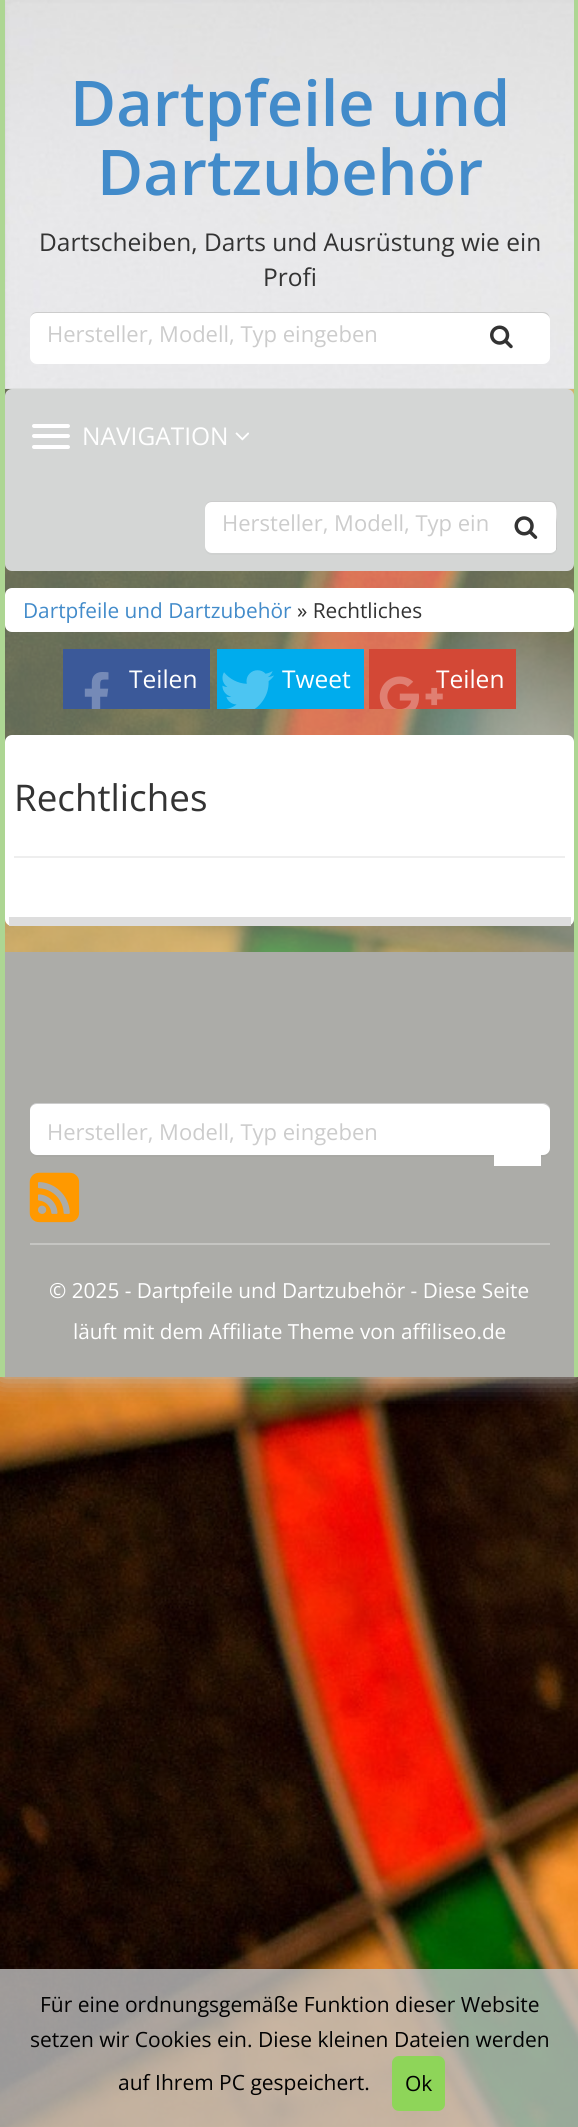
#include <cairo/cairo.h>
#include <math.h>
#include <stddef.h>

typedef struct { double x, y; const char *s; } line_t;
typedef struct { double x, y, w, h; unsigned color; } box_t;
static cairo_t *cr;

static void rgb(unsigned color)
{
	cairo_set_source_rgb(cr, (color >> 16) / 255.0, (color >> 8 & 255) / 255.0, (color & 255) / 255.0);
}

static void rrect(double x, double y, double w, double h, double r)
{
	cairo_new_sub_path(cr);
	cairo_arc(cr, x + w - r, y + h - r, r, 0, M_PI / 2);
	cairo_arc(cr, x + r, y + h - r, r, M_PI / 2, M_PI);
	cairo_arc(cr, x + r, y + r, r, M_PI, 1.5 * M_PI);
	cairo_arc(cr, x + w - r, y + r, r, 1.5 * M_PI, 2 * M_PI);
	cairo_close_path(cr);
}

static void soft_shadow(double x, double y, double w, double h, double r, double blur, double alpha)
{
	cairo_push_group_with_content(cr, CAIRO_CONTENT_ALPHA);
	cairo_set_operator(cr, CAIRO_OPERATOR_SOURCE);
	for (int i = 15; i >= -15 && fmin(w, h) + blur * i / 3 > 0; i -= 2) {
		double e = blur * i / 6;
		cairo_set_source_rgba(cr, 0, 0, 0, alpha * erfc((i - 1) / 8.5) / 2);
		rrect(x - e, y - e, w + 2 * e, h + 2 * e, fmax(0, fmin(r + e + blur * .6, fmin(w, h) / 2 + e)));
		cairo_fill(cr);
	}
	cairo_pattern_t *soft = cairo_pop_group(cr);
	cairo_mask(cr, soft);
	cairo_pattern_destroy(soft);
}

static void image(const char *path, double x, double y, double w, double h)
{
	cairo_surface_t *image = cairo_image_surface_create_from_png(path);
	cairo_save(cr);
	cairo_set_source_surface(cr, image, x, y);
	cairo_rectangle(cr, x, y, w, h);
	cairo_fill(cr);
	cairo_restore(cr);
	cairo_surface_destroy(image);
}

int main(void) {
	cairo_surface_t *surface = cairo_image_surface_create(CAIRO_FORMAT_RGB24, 578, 2127);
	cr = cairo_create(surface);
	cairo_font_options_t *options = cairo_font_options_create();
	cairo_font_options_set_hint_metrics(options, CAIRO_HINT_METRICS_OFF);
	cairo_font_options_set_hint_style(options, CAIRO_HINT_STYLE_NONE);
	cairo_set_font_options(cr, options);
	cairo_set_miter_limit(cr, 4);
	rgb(0xffffff);
	cairo_paint(cr);
	image("img/1.png", 0, 389, 578, 1738);
	cairo_save(cr);
	cairo_rectangle(cr, 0, 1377, 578, 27);
	cairo_clip(cr);
	rgb(0xc1c1c1);
	soft_shadow(0, 0, 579, 1377, 0, 13, 1);
	cairo_restore(cr);
	cairo_set_source_rgba(cr, 0.741, 0.839, 0.686, 0.5);
	cairo_rectangle(cr, 5, 389, 569, 563);
	cairo_fill(cr);
	rgb(0xadd693);
	cairo_rectangle(cr, 574, 0, 4, 1377);
	cairo_fill(cr);
	cairo_rectangle(cr, 0, 0, 5, 1377);
	cairo_fill(cr);
	rgb(0xd4d6d5);
	cairo_rectangle(cr, 5, 0, 569, 389);
	cairo_fill(cr);
	image("img/2.png", 5, 0, 569, 389);
	rgb(0xffffff);
	rrect(30, 312, 520, 52, 7);
	cairo_fill(cr);
	cairo_set_source_rgba(cr, 0, 0, 0, 0.2);
	cairo_new_path(cr);
	cairo_move_to(cr, 37, 313);
	cairo_line_to(cr, 542, 313);
	cairo_curve_to(cr, 546, 313, 550, 316, 550, 320);
	cairo_curve_to(cr, 550, 316, 548, 312, 543, 312);
	cairo_line_to(cr, 37, 312);
	cairo_curve_to(cr, 32, 312, 30, 316, 30, 320);
	cairo_curve_to(cr, 30, 316, 33, 313, 37, 313);
	cairo_close_path(cr);
	cairo_fill(cr);
	image("img/3.png", 490, 325, 23, 24);
	rgb(0xd4d6d5);
	rrect(5, 389, 569, 182, 7);
	cairo_fill(cr);
	rgb(0xffffff);
	rrect(32, 424, 38, 4, 2);
	cairo_fill(cr);
	rrect(32, 434, 38, 4, 2);
	cairo_fill(cr);
	rrect(32, 445, 38, 4, 2);
	cairo_fill(cr);
	image("img/4.png", 235, 432, 14, 9);
	rgb(0xcfd1d0);
	cairo_new_path(cr);
	cairo_move_to(cr, 205, 548);
	cairo_curve_to(cr, 205, 552, 208, 555, 212, 555);
	cairo_line_to(cr, 550, 555);
	cairo_curve_to(cr, 554, 555, 557, 552, 557, 548);
	cairo_line_to(cr, 557, 509);
	cairo_line_to(cr, 556, 506);
	cairo_line_to(cr, 556, 546);
	cairo_curve_to(cr, 556, 550, 553, 553, 550, 553);
	cairo_line_to(cr, 212, 553);
	cairo_curve_to(cr, 209, 553, 206, 551, 205, 548);
	cairo_close_path(cr);
	cairo_fill(cr);
	rgb(0xffffff);
	rrect(205, 501, 352, 52, 7);
	cairo_fill(cr);
	cairo_set_source_rgba(cr, 0, 0, 0, 0.2);
	cairo_new_path(cr);
	cairo_move_to(cr, 212, 502);
	cairo_line_to(cr, 550, 502);
	cairo_curve_to(cr, 559, 502, 556, 518, 556, 522);
	cairo_line_to(cr, 556, 550);
	cairo_curve_to(cr, 557, 549, 557, 547, 557, 546);
	cairo_line_to(cr, 557, 508);
	cairo_curve_to(cr, 557, 504, 554, 501, 550, 501);
	cairo_line_to(cr, 212, 501);
	cairo_curve_to(cr, 208, 501, 205, 504, 205, 508);
	cairo_line_to(cr, 205, 509);
	cairo_curve_to(cr, 205, 505, 208, 502, 212, 502);
	cairo_close_path(cr);
	cairo_fill(cr);
	image("img/5.png", 514, 516, 24, 23);
	rgb(0xffffff);
	rrect(5, 588, 569, 44, 7);
	cairo_fill(cr);
	rgb(0x3b5999);
	cairo_rectangle(cr, 63, 649, 147, 60);
	cairo_fill(cr);
	image("img/6.png", 84, 672, 25, 37);
	rgb(0x00aced);
	cairo_rectangle(cr, 217, 649, 147, 60);
	cairo_fill(cr);
	image("img/7.png", 222, 670, 52, 39);
	rgb(0xd34836);
	cairo_rectangle(cr, 369, 649, 147, 60);
	cairo_fill(cr);
	rgb(0xffffff);
	rrect(5, 735, 569, 191, 7);
	cairo_fill(cr);
	{
		static const box_t items[] = {
			{9, 917, 562, 9, 0xdddddd},
			{14, 856, 551, 2, 0xeeeeee},
			{5, 952, 569, 425, 0xacaca8},
		};
		for (size_t i = 0; i < sizeof items / sizeof *items; i++) {
			rgb(items[i].color);
			cairo_rectangle(cr, items[i].x, items[i].y, items[i].w, items[i].h);
			cairo_fill(cr);
		}
	}
	rgb(0xa8a8a4);
	cairo_new_path(cr);
	cairo_move_to(cr, 30, 1150);
	cairo_curve_to(cr, 30, 1154, 33, 1157, 37, 1157);
	cairo_line_to(cr, 543, 1157);
	cairo_curve_to(cr, 547, 1157, 550, 1154, 550, 1150);
	cairo_line_to(cr, 550, 1111);
	cairo_line_to(cr, 549, 1108);
	cairo_line_to(cr, 550, 1148);
	cairo_curve_to(cr, 550, 1152, 546, 1155, 542, 1155);
	cairo_line_to(cr, 37, 1155);
	cairo_curve_to(cr, 34, 1155, 31, 1153, 30, 1150);
	cairo_close_path(cr);
	cairo_fill(cr);
	rgb(0xffffff);
	rrect(30, 1103, 520, 52, 7);
	cairo_fill(cr);
	cairo_set_source_rgba(cr, 0, 0, 0, 0.2);
	cairo_new_path(cr);
	cairo_move_to(cr, 37, 1104);
	cairo_line_to(cr, 542, 1104);
	cairo_curve_to(cr, 546, 1104, 550, 1107, 550, 1111);
	cairo_curve_to(cr, 550, 1107, 548, 1103, 543, 1103);
	cairo_line_to(cr, 37, 1103);
	cairo_curve_to(cr, 32, 1103, 30, 1107, 30, 1111);
	cairo_curve_to(cr, 30, 1107, 33, 1104, 37, 1104);
	cairo_close_path(cr);
	cairo_fill(cr);
	rgb(0xffffff);
	cairo_rectangle(cr, 494, 1155, 47, 11);
	cairo_fill(cr);
	image("img/9.png", 29, 1172, 51, 51);
	rgb(0xc5c5c2);
	cairo_rectangle(cr, 30, 1243, 520, 2);
	cairo_fill(cr);
	cairo_set_source_rgba(cr, 0.757, 0.757, 0.757, 0.79);
	cairo_rectangle(cr, 0, 1969, 578, 158);
	cairo_fill(cr);
	cairo_set_source_rgba(cr, 0.553, 0.839, 0.349, 0.99);
	rrect(392, 2056, 53, 55, 7);
	cairo_fill(cr);
	cairo_select_font_face(cr, "Open Sans SemiBold", CAIRO_FONT_SLANT_NORMAL, CAIRO_FONT_WEIGHT_NORMAL);
	cairo_set_font_size(cr, 63);
	rgb(0x428bca);
	cairo_move_to(cr, 70, 126);
	cairo_show_text(cr, "Dartpfeile und");
	cairo_move_to(cr, 97, 195);
	cairo_show_text(cr, "Dartzubehör");
	cairo_select_font_face(cr, "Open Sans", CAIRO_FONT_SLANT_NORMAL, CAIRO_FONT_WEIGHT_NORMAL);
	cairo_set_font_size(cr, 24.5);
	rgb(0x333333);
	cairo_move_to(cr, 39, 251);
	cairo_show_text(cr, "Dartscheiben, Darts und Ausrüstung wie ein");
	cairo_move_to(cr, 263, 286);
	cairo_show_text(cr, "Profi");
	cairo_set_font_size(cr, 22);
	rgb(0xcccccc);
	cairo_move_to(cr, 47, 342);
	cairo_show_text(cr, "Hersteller, Modell, Typ eingeben");
	cairo_set_font_size(cr, 24.5);
	rgb(0xffffff);
	cairo_move_to(cr, 82, 445);
	cairo_show_text(cr, "NAVIGATION");
	cairo_set_font_size(cr, 22);
	rgb(0xcccccc);
	cairo_move_to(cr, 222, 531);
	cairo_show_text(cr, "Hersteller, Modell, Typ ein");
	cairo_set_font_size(cr, 20.8);
	rgb(0x428bca);
	cairo_move_to(cr, 23, 618);
	cairo_show_text(cr, "Dartpfeile und Dartzubehör");
	rgb(0x333333);
	cairo_move_to(cr, 297, 618);
	cairo_show_text(cr, "» Rechtliches");
	cairo_set_font_size(cr, 24.5);
	rgb(0xffffff);
	{
		static const line_t items[] = {
			{129, 688, "Teilen"},
			{282, 688, "Tweet"},
			{436, 688, "Teilen"},
		};
		for (size_t i = 0; i < sizeof items / sizeof *items; i++) {
			cairo_move_to(cr, items[i].x, items[i].y);
			cairo_show_text(cr, items[i].s);
		}
	}
	image("img/8.png", 379, 676, 64, 33);
	cairo_set_font_size(cr, 36.75);
	rgb(0x333333);
	cairo_move_to(cr, 14, 811);
	cairo_show_text(cr, "Rechtliches");
	cairo_set_font_size(cr, 22);
	rgb(0xcccccc);
	cairo_move_to(cr, 47, 1140);
	cairo_show_text(cr, "Hersteller, Modell, Typ eingeben");
	cairo_set_font_size(cr, 20.8);
	rgb(0xffffff);
	cairo_move_to(cr, 49, 1298);
	cairo_show_text(cr, "© 2025 - Dartpfeile und Dartzubehör - Diese Seite");
	cairo_move_to(cr, 73, 1339);
	cairo_show_text(cr, "läuft mit dem Affiliate Theme von affiliseo.de");
	cairo_set_font_size(cr, 21);
	rgb(0x010101);
	{
		static const line_t items[] = {
			{40, 2012, "Für eine ordnungsgemäße Funktion dieser Website"},
			{30, 2047, "setzen wir Cookies ein. Diese kleinen Dateien werden"},
			{118, 2090, "auf Ihrem PC gespeichert."},
			{405, 2091, "Ok"},
		};
		for (size_t i = 0; i < sizeof items / sizeof *items; i++) {
			cairo_move_to(cr, items[i].x, items[i].y);
			cairo_show_text(cr, items[i].s);
		}
	}
	cairo_surface_write_to_png(surface, "page.png");
	cairo_font_options_destroy(options);
	cairo_destroy(cr);
	cairo_surface_destroy(surface);
	return 0;
}
